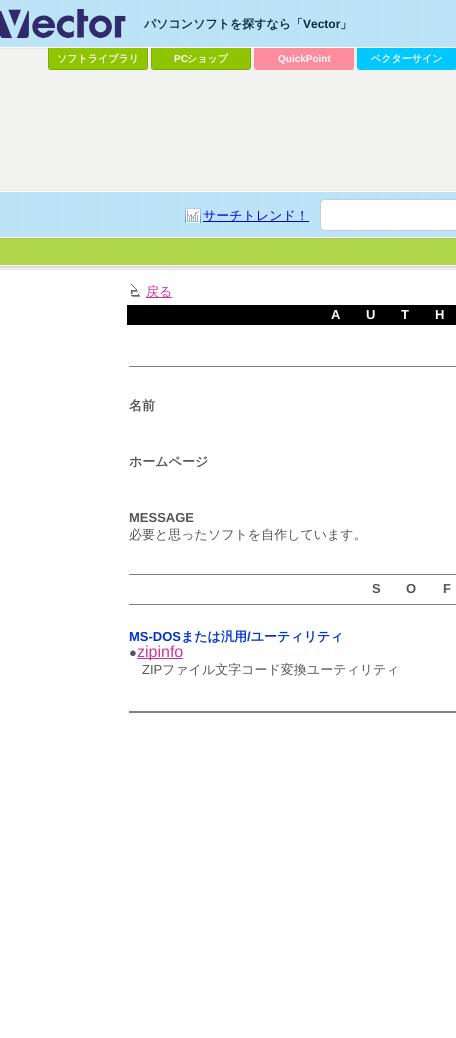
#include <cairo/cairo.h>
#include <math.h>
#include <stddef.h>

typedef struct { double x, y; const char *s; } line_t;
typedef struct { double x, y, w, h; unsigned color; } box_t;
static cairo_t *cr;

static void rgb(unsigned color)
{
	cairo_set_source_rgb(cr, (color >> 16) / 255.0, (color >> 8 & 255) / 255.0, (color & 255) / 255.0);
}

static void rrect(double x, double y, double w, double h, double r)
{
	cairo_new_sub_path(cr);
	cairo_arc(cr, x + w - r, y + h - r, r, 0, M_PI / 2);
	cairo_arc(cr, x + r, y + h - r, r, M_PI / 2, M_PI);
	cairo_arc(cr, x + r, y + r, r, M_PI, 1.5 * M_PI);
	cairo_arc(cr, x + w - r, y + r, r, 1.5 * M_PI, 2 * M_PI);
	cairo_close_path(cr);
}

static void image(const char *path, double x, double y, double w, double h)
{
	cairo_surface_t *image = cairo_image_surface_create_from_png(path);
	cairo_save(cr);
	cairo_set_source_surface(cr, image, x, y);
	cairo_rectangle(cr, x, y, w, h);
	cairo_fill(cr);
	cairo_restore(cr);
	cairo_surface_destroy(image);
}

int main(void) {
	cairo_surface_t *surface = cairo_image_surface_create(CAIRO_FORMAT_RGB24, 456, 1038);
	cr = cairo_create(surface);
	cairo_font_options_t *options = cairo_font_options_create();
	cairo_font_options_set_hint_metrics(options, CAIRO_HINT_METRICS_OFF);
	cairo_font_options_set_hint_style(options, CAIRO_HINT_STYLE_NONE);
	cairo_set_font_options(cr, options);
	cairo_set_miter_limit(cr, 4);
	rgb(0xffffff);
	cairo_paint(cr);
	image("img/1.png", 0, 0, 456, 271);
	image("img/2.png", 0, 9, 126, 29);
	rgb(0x8fc400);
	cairo_new_path(cr);
	cairo_move_to(cr, 49, 48);
	cairo_line_to(cr, 147, 48);
	cairo_line_to(cr, 147, 67);
	cairo_curve_to(cr, 147, 68, 146, 69, 145, 69);
	cairo_line_to(cr, 51, 69);
	cairo_curve_to(cr, 50, 69, 49, 68, 49, 67);
	cairo_close_path(cr);
	cairo_fill(cr);
	rgb(0x7eac00);
	cairo_set_fill_rule(cr, CAIRO_FILL_RULE_EVEN_ODD);
	cairo_new_path(cr);
	cairo_move_to(cr, 48, 48);
	cairo_line_to(cr, 148, 48);
	cairo_line_to(cr, 148, 67);
	cairo_curve_to(cr, 148, 69, 147, 70, 145, 70);
	cairo_line_to(cr, 51, 70);
	cairo_curve_to(cr, 49, 70, 48, 69, 48, 67);
	cairo_close_path(cr);
	cairo_move_to(cr, 49, 48);
	cairo_line_to(cr, 147, 48);
	cairo_line_to(cr, 147, 67);
	cairo_curve_to(cr, 147, 68, 146, 69, 145, 69);
	cairo_line_to(cr, 51, 69);
	cairo_curve_to(cr, 50, 69, 49, 68, 49, 67);
	cairo_close_path(cr);
	cairo_fill(cr);
	rgb(0x8fc400);
	cairo_new_path(cr);
	cairo_move_to(cr, 152, 48);
	cairo_line_to(cr, 250, 48);
	cairo_line_to(cr, 250, 67);
	cairo_curve_to(cr, 250, 68, 249, 69, 248, 69);
	cairo_line_to(cr, 154, 69);
	cairo_curve_to(cr, 153, 69, 152, 68, 152, 67);
	cairo_close_path(cr);
	cairo_fill(cr);
	rgb(0x7eac00);
	cairo_new_path(cr);
	cairo_move_to(cr, 151, 48);
	cairo_line_to(cr, 251, 48);
	cairo_line_to(cr, 251, 67);
	cairo_curve_to(cr, 251, 69, 250, 70, 248, 70);
	cairo_line_to(cr, 154, 70);
	cairo_curve_to(cr, 152, 70, 151, 69, 151, 67);
	cairo_close_path(cr);
	cairo_move_to(cr, 152, 48);
	cairo_line_to(cr, 250, 48);
	cairo_line_to(cr, 250, 67);
	cairo_curve_to(cr, 250, 68, 249, 69, 248, 69);
	cairo_line_to(cr, 154, 69);
	cairo_curve_to(cr, 153, 69, 152, 68, 152, 67);
	cairo_close_path(cr);
	cairo_fill(cr);
	rgb(0xfd8c9d);
	cairo_new_path(cr);
	cairo_move_to(cr, 255, 48);
	cairo_line_to(cr, 353, 48);
	cairo_line_to(cr, 353, 67);
	cairo_curve_to(cr, 353, 68, 352, 69, 351, 69);
	cairo_line_to(cr, 257, 69);
	cairo_curve_to(cr, 256, 69, 255, 68, 255, 67);
	cairo_close_path(cr);
	cairo_fill(cr);
	cairo_new_path(cr);
	cairo_move_to(cr, 254, 48);
	cairo_line_to(cr, 354, 48);
	cairo_line_to(cr, 354, 67);
	cairo_curve_to(cr, 354, 69, 353, 70, 351, 70);
	cairo_line_to(cr, 257, 70);
	cairo_curve_to(cr, 255, 70, 254, 69, 254, 67);
	cairo_close_path(cr);
	cairo_move_to(cr, 255, 48);
	cairo_line_to(cr, 353, 48);
	cairo_line_to(cr, 353, 67);
	cairo_curve_to(cr, 353, 68, 352, 69, 351, 69);
	cairo_line_to(cr, 257, 69);
	cairo_curve_to(cr, 256, 69, 255, 68, 255, 67);
	cairo_close_path(cr);
	cairo_fill(cr);
	rgb(0x00c8ff);
	cairo_new_path(cr);
	cairo_move_to(cr, 358, 48);
	cairo_line_to(cr, 456, 48);
	cairo_line_to(cr, 456, 67);
	cairo_curve_to(cr, 456, 68, 455, 69, 454, 69);
	cairo_line_to(cr, 360, 69);
	cairo_curve_to(cr, 359, 69, 358, 68, 358, 67);
	cairo_close_path(cr);
	cairo_fill(cr);
	cairo_new_path(cr);
	cairo_move_to(cr, 357, 48);
	cairo_line_to(cr, 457, 48);
	cairo_line_to(cr, 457, 67);
	cairo_curve_to(cr, 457, 69, 456, 70, 454, 70);
	cairo_line_to(cr, 360, 70);
	cairo_curve_to(cr, 358, 70, 357, 69, 357, 67);
	cairo_close_path(cr);
	cairo_move_to(cr, 358, 48);
	cairo_line_to(cr, 456, 48);
	cairo_line_to(cr, 456, 67);
	cairo_curve_to(cr, 456, 68, 455, 69, 454, 69);
	cairo_line_to(cr, 360, 69);
	cairo_curve_to(cr, 359, 69, 358, 68, 358, 67);
	cairo_close_path(cr);
	cairo_fill(cr);
	image("img/3.png", 185, 208, 16, 15);
	rgb(0x0000dd);
	cairo_rectangle(cr, 203, 221, 106, 1);
	cairo_fill(cr);
	rgb(0xffffff);
	rrect(320.5, 199.5, 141, 31, 4.5);
	cairo_fill_preserve(cr);
	rgb(0xcccccc);
	cairo_set_line_width(cr, 1);
	cairo_stroke(cr);
	image("img/4.png", 131, 284, 9, 13);
	{
		static const box_t items[] = {
			{146, 297, 26, 1, 0xcc3399},
			{127, 305, 329, 20, 0x000000},
			{129, 366, 327, 1, 0x808080},
			{129, 574, 327, 1, 0x808080},
			{129, 604, 327, 1, 0x808080},
			{137, 658, 46, 1, 0xcc3399},
			{129, 711, 327, 2, 0x808080},
		};
		for (size_t i = 0; i < sizeof items / sizeof *items; i++) {
			rgb(items[i].color);
			cairo_rectangle(cr, items[i].x, items[i].y, items[i].w, items[i].h);
			cairo_fill(cr);
		}
	}
	cairo_select_font_face(cr, "WenQuanYi Zen Hei", CAIRO_FONT_SLANT_NORMAL, CAIRO_FONT_WEIGHT_BOLD);
	cairo_set_font_size(cr, 12);
	rgb(0x002e3d);
	cairo_move_to(cr, 144, 28);
	cairo_show_text(cr, "パソコンソフトを探すなら「");
	cairo_select_font_face(cr, "Liberation Sans", CAIRO_FONT_SLANT_NORMAL, CAIRO_FONT_WEIGHT_BOLD);
	cairo_move_to(cr, 303, 28);
	cairo_show_text(cr, "Vector");
	cairo_select_font_face(cr, "WenQuanYi Zen Hei", CAIRO_FONT_SLANT_NORMAL, CAIRO_FONT_WEIGHT_BOLD);
	cairo_move_to(cr, 340, 28);
	cairo_show_text(cr, "」");
	cairo_set_font_size(cr, 10);
	rgb(0xffffff);
	cairo_move_to(cr, 57, 62);
	cairo_show_text(cr, "ソフトライブラリ");
	cairo_select_font_face(cr, "Liberation Sans", CAIRO_FONT_SLANT_NORMAL, CAIRO_FONT_WEIGHT_BOLD);
	cairo_move_to(cr, 174, 62);
	cairo_show_text(cr, "PC");
	cairo_select_font_face(cr, "WenQuanYi Zen Hei", CAIRO_FONT_SLANT_NORMAL, CAIRO_FONT_WEIGHT_BOLD);
	cairo_move_to(cr, 187, 62);
	cairo_show_text(cr, "ショップ");
	cairo_select_font_face(cr, "Liberation Sans", CAIRO_FONT_SLANT_NORMAL, CAIRO_FONT_WEIGHT_BOLD);
	cairo_move_to(cr, 278, 62);
	cairo_show_text(cr, "QuickPoint");
	cairo_select_font_face(cr, "WenQuanYi Zen Hei", CAIRO_FONT_SLANT_NORMAL, CAIRO_FONT_WEIGHT_BOLD);
	cairo_move_to(cr, 371, 62);
	cairo_show_text(cr, "ベクターサイン");
	cairo_select_font_face(cr, "WenQuanYi Zen Hei Medium", CAIRO_FONT_SLANT_NORMAL, CAIRO_FONT_WEIGHT_NORMAL);
	cairo_set_font_size(cr, 13);
	rgb(0x0000dd);
	cairo_move_to(cr, 203, 220);
	cairo_show_text(cr, "サーチトレンド！");
	rgb(0xcc3399);
	cairo_move_to(cr, 146, 296);
	cairo_show_text(cr, "戻る");
	cairo_select_font_face(cr, "Liberation Sans", CAIRO_FONT_SLANT_NORMAL, CAIRO_FONT_WEIGHT_BOLD);
	rgb(0xffffff);
	{
		static const line_t items[] = {
			{331, 319, "A"},
			{366, 319, "U"},
			{401, 319, "T"},
			{435, 319, "H"},
		};
		for (size_t i = 0; i < sizeof items / sizeof *items; i++) {
			cairo_move_to(cr, items[i].x, items[i].y);
			cairo_show_text(cr, items[i].s);
		}
	}
	cairo_select_font_face(cr, "WenQuanYi Zen Hei", CAIRO_FONT_SLANT_NORMAL, CAIRO_FONT_WEIGHT_BOLD);
	rgb(0x555555);
	cairo_move_to(cr, 129, 410);
	cairo_show_text(cr, "名前");
	cairo_move_to(cr, 129, 466);
	cairo_show_text(cr, "ホームページ");
	cairo_select_font_face(cr, "Liberation Sans", CAIRO_FONT_SLANT_NORMAL, CAIRO_FONT_WEIGHT_BOLD);
	cairo_move_to(cr, 129, 522);
	cairo_show_text(cr, "MESSAGE");
	cairo_select_font_face(cr, "WenQuanYi Zen Hei Medium", CAIRO_FONT_SLANT_NORMAL, CAIRO_FONT_WEIGHT_NORMAL);
	cairo_move_to(cr, 129, 539);
	cairo_show_text(cr, "必要と思ったソフトを自作しています。");
	cairo_select_font_face(cr, "Liberation Sans", CAIRO_FONT_SLANT_NORMAL, CAIRO_FONT_WEIGHT_BOLD);
	{
		static const line_t items[] = {
			{372, 593, "S"},
			{406, 593, "O"},
			{443, 593, "F"},
		};
		for (size_t i = 0; i < sizeof items / sizeof *items; i++) {
			cairo_move_to(cr, items[i].x, items[i].y);
			cairo_show_text(cr, items[i].s);
		}
	}
	rgb(0x0033cc);
	cairo_move_to(cr, 129, 641);
	cairo_show_text(cr, "MS-DOS");
	cairo_select_font_face(cr, "WenQuanYi Zen Hei", CAIRO_FONT_SLANT_NORMAL, CAIRO_FONT_WEIGHT_BOLD);
	cairo_move_to(cr, 181, 641);
	cairo_show_text(cr, "または汎用 ユーティリティ");
	cairo_select_font_face(cr, "Liberation Sans", CAIRO_FONT_SLANT_NORMAL, CAIRO_FONT_WEIGHT_BOLD);
	cairo_move_to(cr, 247, 641);
	cairo_show_text(cr, "/");
	cairo_select_font_face(cr, "Liberation Sans", CAIRO_FONT_SLANT_NORMAL, CAIRO_FONT_WEIGHT_NORMAL);
	rgb(0x555555);
	cairo_move_to(cr, 129, 657);
	cairo_show_text(cr, "●");
	cairo_set_font_size(cr, 16);
	rgb(0xcc3399);
	cairo_move_to(cr, 137, 657);
	cairo_show_text(cr, "zipinfo");
	cairo_set_font_size(cr, 13);
	rgb(0x555555);
	cairo_move_to(cr, 142, 674);
	cairo_show_text(cr, "ZIP");
	cairo_select_font_face(cr, "WenQuanYi Zen Hei Medium", CAIRO_FONT_SLANT_NORMAL, CAIRO_FONT_WEIGHT_NORMAL);
	cairo_move_to(cr, 162, 674);
	cairo_show_text(cr, "ファイル文字コード変換ユーティリティ");
	cairo_surface_write_to_png(surface, "page.png");
	cairo_font_options_destroy(options);
	cairo_destroy(cr);
	cairo_surface_destroy(surface);
	return 0;
}
